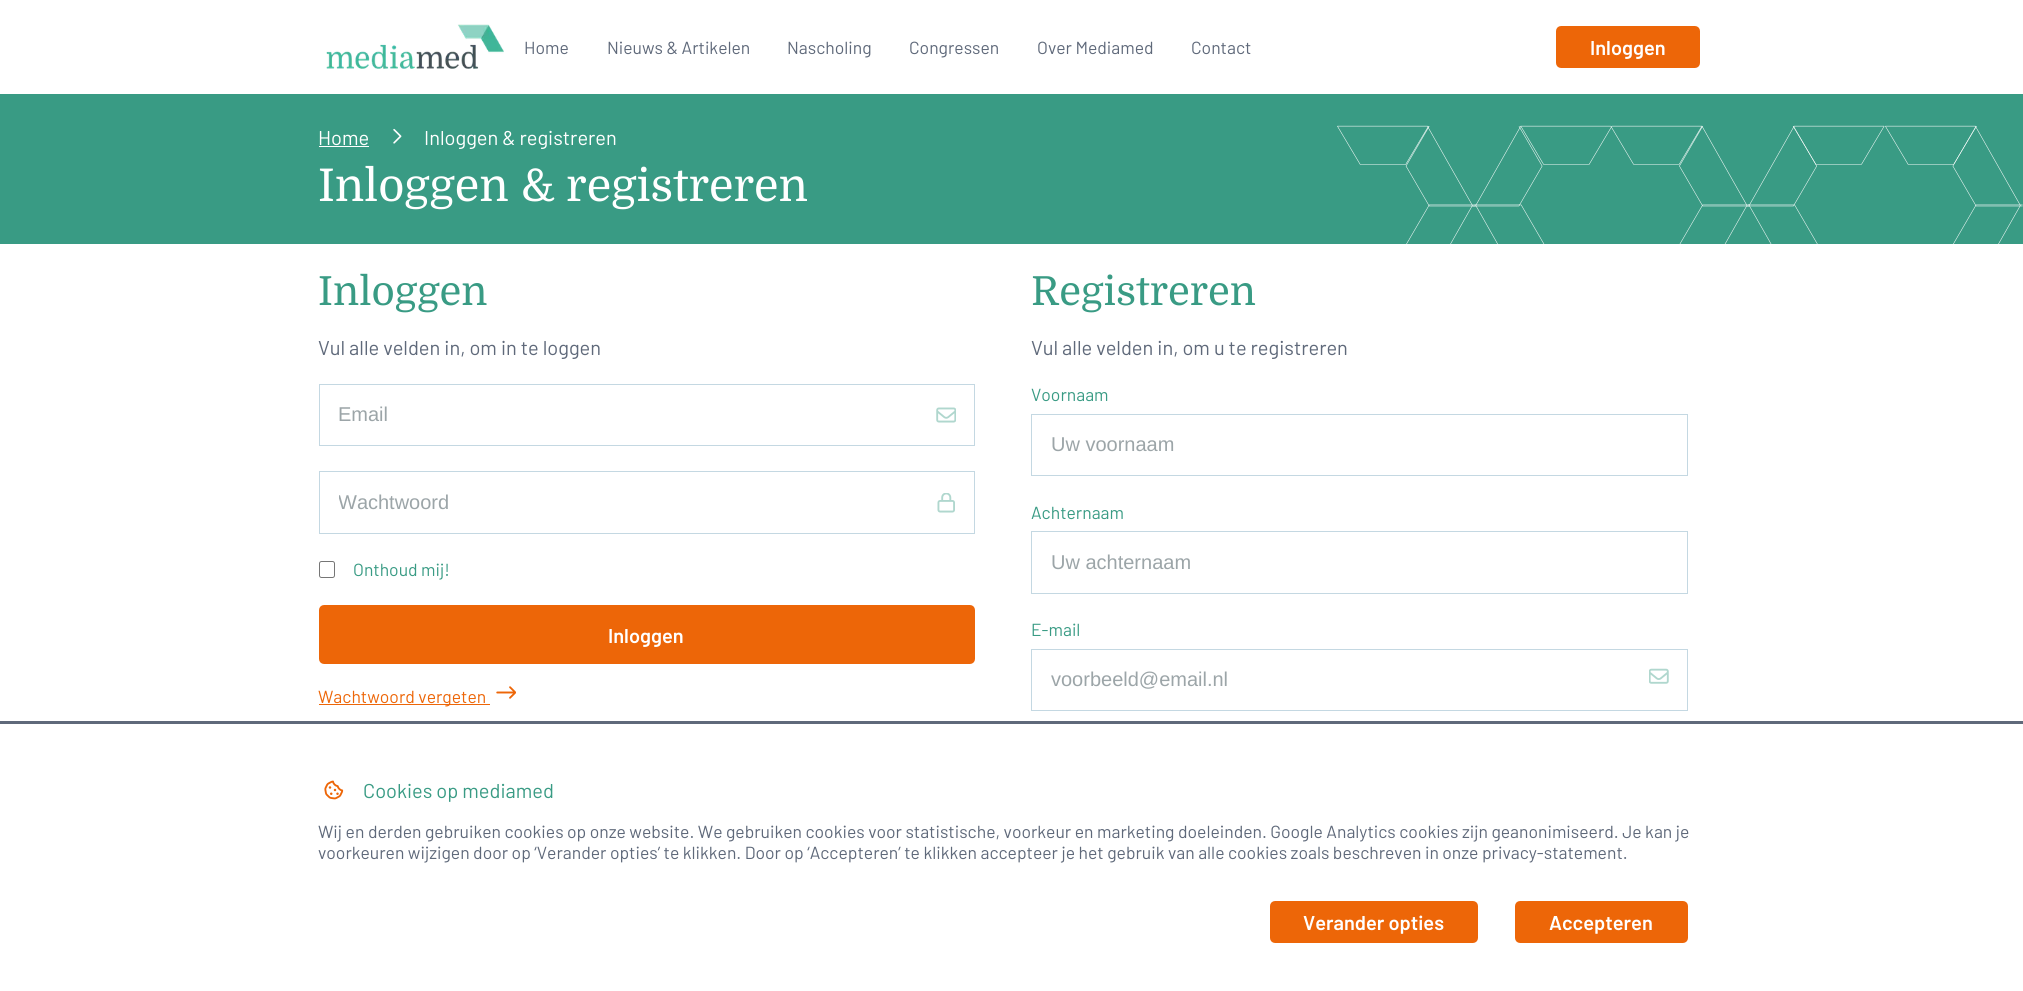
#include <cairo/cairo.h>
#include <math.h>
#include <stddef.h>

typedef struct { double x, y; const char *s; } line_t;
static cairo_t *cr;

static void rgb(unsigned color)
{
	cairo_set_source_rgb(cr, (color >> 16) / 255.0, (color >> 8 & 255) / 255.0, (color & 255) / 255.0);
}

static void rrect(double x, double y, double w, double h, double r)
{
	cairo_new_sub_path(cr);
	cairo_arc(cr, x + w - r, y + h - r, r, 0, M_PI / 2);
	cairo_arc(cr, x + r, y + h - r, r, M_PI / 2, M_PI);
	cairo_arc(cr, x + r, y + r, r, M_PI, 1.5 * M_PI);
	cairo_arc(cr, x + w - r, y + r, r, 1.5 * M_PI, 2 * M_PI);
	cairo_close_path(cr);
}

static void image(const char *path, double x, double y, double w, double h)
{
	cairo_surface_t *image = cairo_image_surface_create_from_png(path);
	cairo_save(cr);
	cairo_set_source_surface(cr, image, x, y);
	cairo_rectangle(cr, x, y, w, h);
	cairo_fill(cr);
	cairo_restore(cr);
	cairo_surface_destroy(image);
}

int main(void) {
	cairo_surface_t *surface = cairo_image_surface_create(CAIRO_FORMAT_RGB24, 2023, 991);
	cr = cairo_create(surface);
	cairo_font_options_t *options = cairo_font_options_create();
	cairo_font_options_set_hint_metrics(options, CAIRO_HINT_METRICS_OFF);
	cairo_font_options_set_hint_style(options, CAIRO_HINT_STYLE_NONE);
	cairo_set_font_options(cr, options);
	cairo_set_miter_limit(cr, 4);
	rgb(0xffffff);
	cairo_paint(cr);
	image("img/1.png", 326, 24, 178, 45);
	rgb(0xed6608);
	rrect(1557.5, 27.5, 141, 39, 3.5);
	cairo_fill_preserve(cr);
	cairo_set_line_width(cr, 3);
	cairo_stroke(cr);
	rgb(0x399b84);
	cairo_rectangle(cr, 0, 94, 2023, 150);
	cairo_fill(cr);
	rgb(0xffffff);
	cairo_rectangle(cr, 319, 146, 50, 1);
	cairo_fill(cr);
	image("img/2.png", 393, 128, 9, 16);
	image("img/3.png", 1337, 125, 686, 119);
	cairo_rectangle(cr, 319.5, 384.5, 655, 61);
	rgb(0xc4d8e2);
	cairo_set_line_width(cr, 1);
	cairo_stroke(cr);
	image("img/4.png", 936, 407, 20, 16);
	cairo_rectangle(cr, 319.5, 471.5, 655, 62);
	cairo_stroke(cr);
	image("img/5.png", 937, 493, 18, 20);
	rrect(319.5, 561.5, 15, 16, 2);
	rgb(0x767676);
	cairo_stroke(cr);
	rgb(0xed6608);
	rrect(320.5, 606.5, 653, 56, 3.5);
	cairo_fill_preserve(cr);
	cairo_set_line_width(cr, 3);
	cairo_stroke(cr);
	cairo_rectangle(cr, 319, 704, 171, 1);
	cairo_fill(cr);
	image("img/6.png", 496, 686, 20, 13);
	cairo_rectangle(cr, 1031.5, 414.5, 656, 61);
	rgb(0xc4d8e2);
	cairo_set_line_width(cr, 1);
	cairo_stroke(cr);
	cairo_rectangle(cr, 1031.5, 531.5, 656, 62);
	cairo_stroke(cr);
	cairo_rectangle(cr, 1031.5, 649.5, 656, 61);
	cairo_stroke(cr);
	image("img/7.png", 1649, 668, 20, 16);
	rgb(0x5f697a);
	cairo_rectangle(cr, 0, 721, 2023, 3);
	cairo_fill(cr);
	image("img/8.png", 324, 780, 20, 20);
	rgb(0xed6608);
	rrect(1271.5, 902.5, 205, 39, 3.5);
	cairo_fill_preserve(cr);
	cairo_set_line_width(cr, 3);
	cairo_stroke(cr);
	rrect(1516.5, 902.5, 170, 39, 3.5);
	cairo_fill_preserve(cr);
	cairo_stroke(cr);
	cairo_select_font_face(cr, "Barlow", CAIRO_FONT_SLANT_NORMAL, CAIRO_FONT_WEIGHT_NORMAL);
	cairo_set_font_size(cr, 17.5);
	rgb(0x5f697a);
	{
		static const line_t items[] = {
			{524, 54, "Home"},
			{607, 54, "Nieuws & Artikelen"},
			{787, 54, "Nascholing"},
			{909, 54, "Congressen"},
			{1037, 54, "Over Mediamed"},
			{1191, 54, "Contact"},
		};
		for (size_t i = 0; i < sizeof items / sizeof *items; i++) {
			cairo_move_to(cr, items[i].x, items[i].y);
			cairo_show_text(cr, items[i].s);
		}
	}
	cairo_select_font_face(cr, "Barlow SemiBold", CAIRO_FONT_SLANT_NORMAL, CAIRO_FONT_WEIGHT_NORMAL);
	cairo_set_font_size(cr, 20);
	rgb(0xffffff);
	cairo_move_to(cr, 1590, 55);
	cairo_show_text(cr, "Inloggen");
	cairo_select_font_face(cr, "Barlow", CAIRO_FONT_SLANT_NORMAL, CAIRO_FONT_WEIGHT_NORMAL);
	cairo_move_to(cr, 318, 145);
	cairo_show_text(cr, "Home");
	cairo_move_to(cr, 424, 145);
	cairo_show_text(cr, "Inloggen & registreren");
	cairo_select_font_face(cr, "Domine", CAIRO_FONT_SLANT_NORMAL, CAIRO_FONT_WEIGHT_NORMAL);
	cairo_set_font_size(cr, 45);
	cairo_move_to(cr, 318, 201);
	cairo_show_text(cr, "Inloggen & registreren");
	cairo_set_font_size(cr, 40);
	rgb(0x399b84);
	cairo_move_to(cr, 318, 305);
	cairo_show_text(cr, "Inloggen");
	cairo_select_font_face(cr, "Barlow", CAIRO_FONT_SLANT_NORMAL, CAIRO_FONT_WEIGHT_NORMAL);
	cairo_set_font_size(cr, 20);
	rgb(0x5f697a);
	cairo_move_to(cr, 318, 355);
	cairo_show_text(cr, "Vul alle velden in, om in te loggen");
	cairo_select_font_face(cr, "Liberation Sans", CAIRO_FONT_SLANT_NORMAL, CAIRO_FONT_WEIGHT_NORMAL);
	rgb(0x9ca5a8);
	cairo_move_to(cr, 338, 421);
	cairo_show_text(cr, "Email");
	cairo_save(cr);
	cairo_rectangle(cr, 339, 491, 616, 23);
	cairo_clip(cr);
	cairo_move_to(cr, 338, 509);
	cairo_show_text(cr, "Wachtwoord");
	cairo_restore(cr);
	cairo_select_font_face(cr, "Barlow", CAIRO_FONT_SLANT_NORMAL, CAIRO_FONT_WEIGHT_NORMAL);
	cairo_set_font_size(cr, 17.5);
	rgb(0x399b84);
	cairo_move_to(cr, 353, 576);
	cairo_show_text(cr, "Onthoud mij!");
	cairo_select_font_face(cr, "Barlow SemiBold", CAIRO_FONT_SLANT_NORMAL, CAIRO_FONT_WEIGHT_NORMAL);
	cairo_set_font_size(cr, 20);
	rgb(0xffffff);
	cairo_move_to(cr, 608, 643);
	cairo_show_text(cr, "Inloggen");
	cairo_select_font_face(cr, "Barlow", CAIRO_FONT_SLANT_NORMAL, CAIRO_FONT_WEIGHT_NORMAL);
	cairo_set_font_size(cr, 17.5);
	rgb(0xed6608);
	cairo_move_to(cr, 318, 703);
	cairo_show_text(cr, "Wachtwoord vergeten");
	cairo_select_font_face(cr, "Domine", CAIRO_FONT_SLANT_NORMAL, CAIRO_FONT_WEIGHT_NORMAL);
	cairo_set_font_size(cr, 40);
	rgb(0x399b84);
	cairo_move_to(cr, 1031, 305);
	cairo_show_text(cr, "Registreren");
	cairo_select_font_face(cr, "Barlow", CAIRO_FONT_SLANT_NORMAL, CAIRO_FONT_WEIGHT_NORMAL);
	cairo_set_font_size(cr, 20);
	rgb(0x5f697a);
	cairo_move_to(cr, 1031, 355);
	cairo_show_text(cr, "Vul alle velden in, om u te registreren");
	cairo_set_font_size(cr, 17.5);
	rgb(0x399b84);
	cairo_move_to(cr, 1031, 401);
	cairo_show_text(cr, "Voornaam");
	cairo_select_font_face(cr, "Liberation Sans", CAIRO_FONT_SLANT_NORMAL, CAIRO_FONT_WEIGHT_NORMAL);
	cairo_set_font_size(cr, 20);
	rgb(0x9ca5a8);
	cairo_move_to(cr, 1051, 451);
	cairo_show_text(cr, "Uw voornaam");
	cairo_select_font_face(cr, "Barlow", CAIRO_FONT_SLANT_NORMAL, CAIRO_FONT_WEIGHT_NORMAL);
	cairo_set_font_size(cr, 17.5);
	rgb(0x399b84);
	cairo_move_to(cr, 1031, 519);
	cairo_show_text(cr, "Achternaam");
	cairo_select_font_face(cr, "Liberation Sans", CAIRO_FONT_SLANT_NORMAL, CAIRO_FONT_WEIGHT_NORMAL);
	cairo_set_font_size(cr, 20);
	rgb(0x9ca5a8);
	cairo_move_to(cr, 1051, 569);
	cairo_show_text(cr, "Uw achternaam");
	cairo_select_font_face(cr, "Barlow", CAIRO_FONT_SLANT_NORMAL, CAIRO_FONT_WEIGHT_NORMAL);
	cairo_set_font_size(cr, 17.5);
	rgb(0x399b84);
	cairo_move_to(cr, 1031, 636);
	cairo_show_text(cr, "E-mail");
	cairo_select_font_face(cr, "Liberation Sans", CAIRO_FONT_SLANT_NORMAL, CAIRO_FONT_WEIGHT_NORMAL);
	cairo_set_font_size(cr, 20);
	rgb(0x9ca5a8);
	cairo_move_to(cr, 1051, 686);
	cairo_show_text(cr, "voorbeeld@email.nl");
	cairo_select_font_face(cr, "Barlow", CAIRO_FONT_SLANT_NORMAL, CAIRO_FONT_WEIGHT_NORMAL);
	rgb(0x399b84);
	cairo_move_to(cr, 363, 798);
	cairo_show_text(cr, "Cookies op mediamed");
	cairo_set_font_size(cr, 17.5);
	rgb(0x5f697a);
	cairo_move_to(cr, 318, 838);
	cairo_show_text(cr, "Wij en derden gebruiken cookies op onze website. We gebruiken cookies voor statistische, voorkeur en marketing doeleinden. Google Analytics cookies zijn geanonimiseerd. Je kan je");
	cairo_move_to(cr, 318, 859);
	cairo_show_text(cr, "voorkeuren wijzigen door op ‘Verander opties’ te klikken. Door op ‘Accepteren’ te klikken accepteer je het gebruik van alle cookies zoals beschreven in onze privacy-statement.");
	cairo_select_font_face(cr, "Barlow SemiBold", CAIRO_FONT_SLANT_NORMAL, CAIRO_FONT_WEIGHT_NORMAL);
	cairo_set_font_size(cr, 20);
	rgb(0xffffff);
	cairo_move_to(cr, 1303, 930);
	cairo_show_text(cr, "Verander opties");
	cairo_move_to(cr, 1549, 930);
	cairo_show_text(cr, "Accepteren");
	cairo_surface_write_to_png(surface, "page.png");
	cairo_font_options_destroy(options);
	cairo_destroy(cr);
	cairo_surface_destroy(surface);
	return 0;
}
